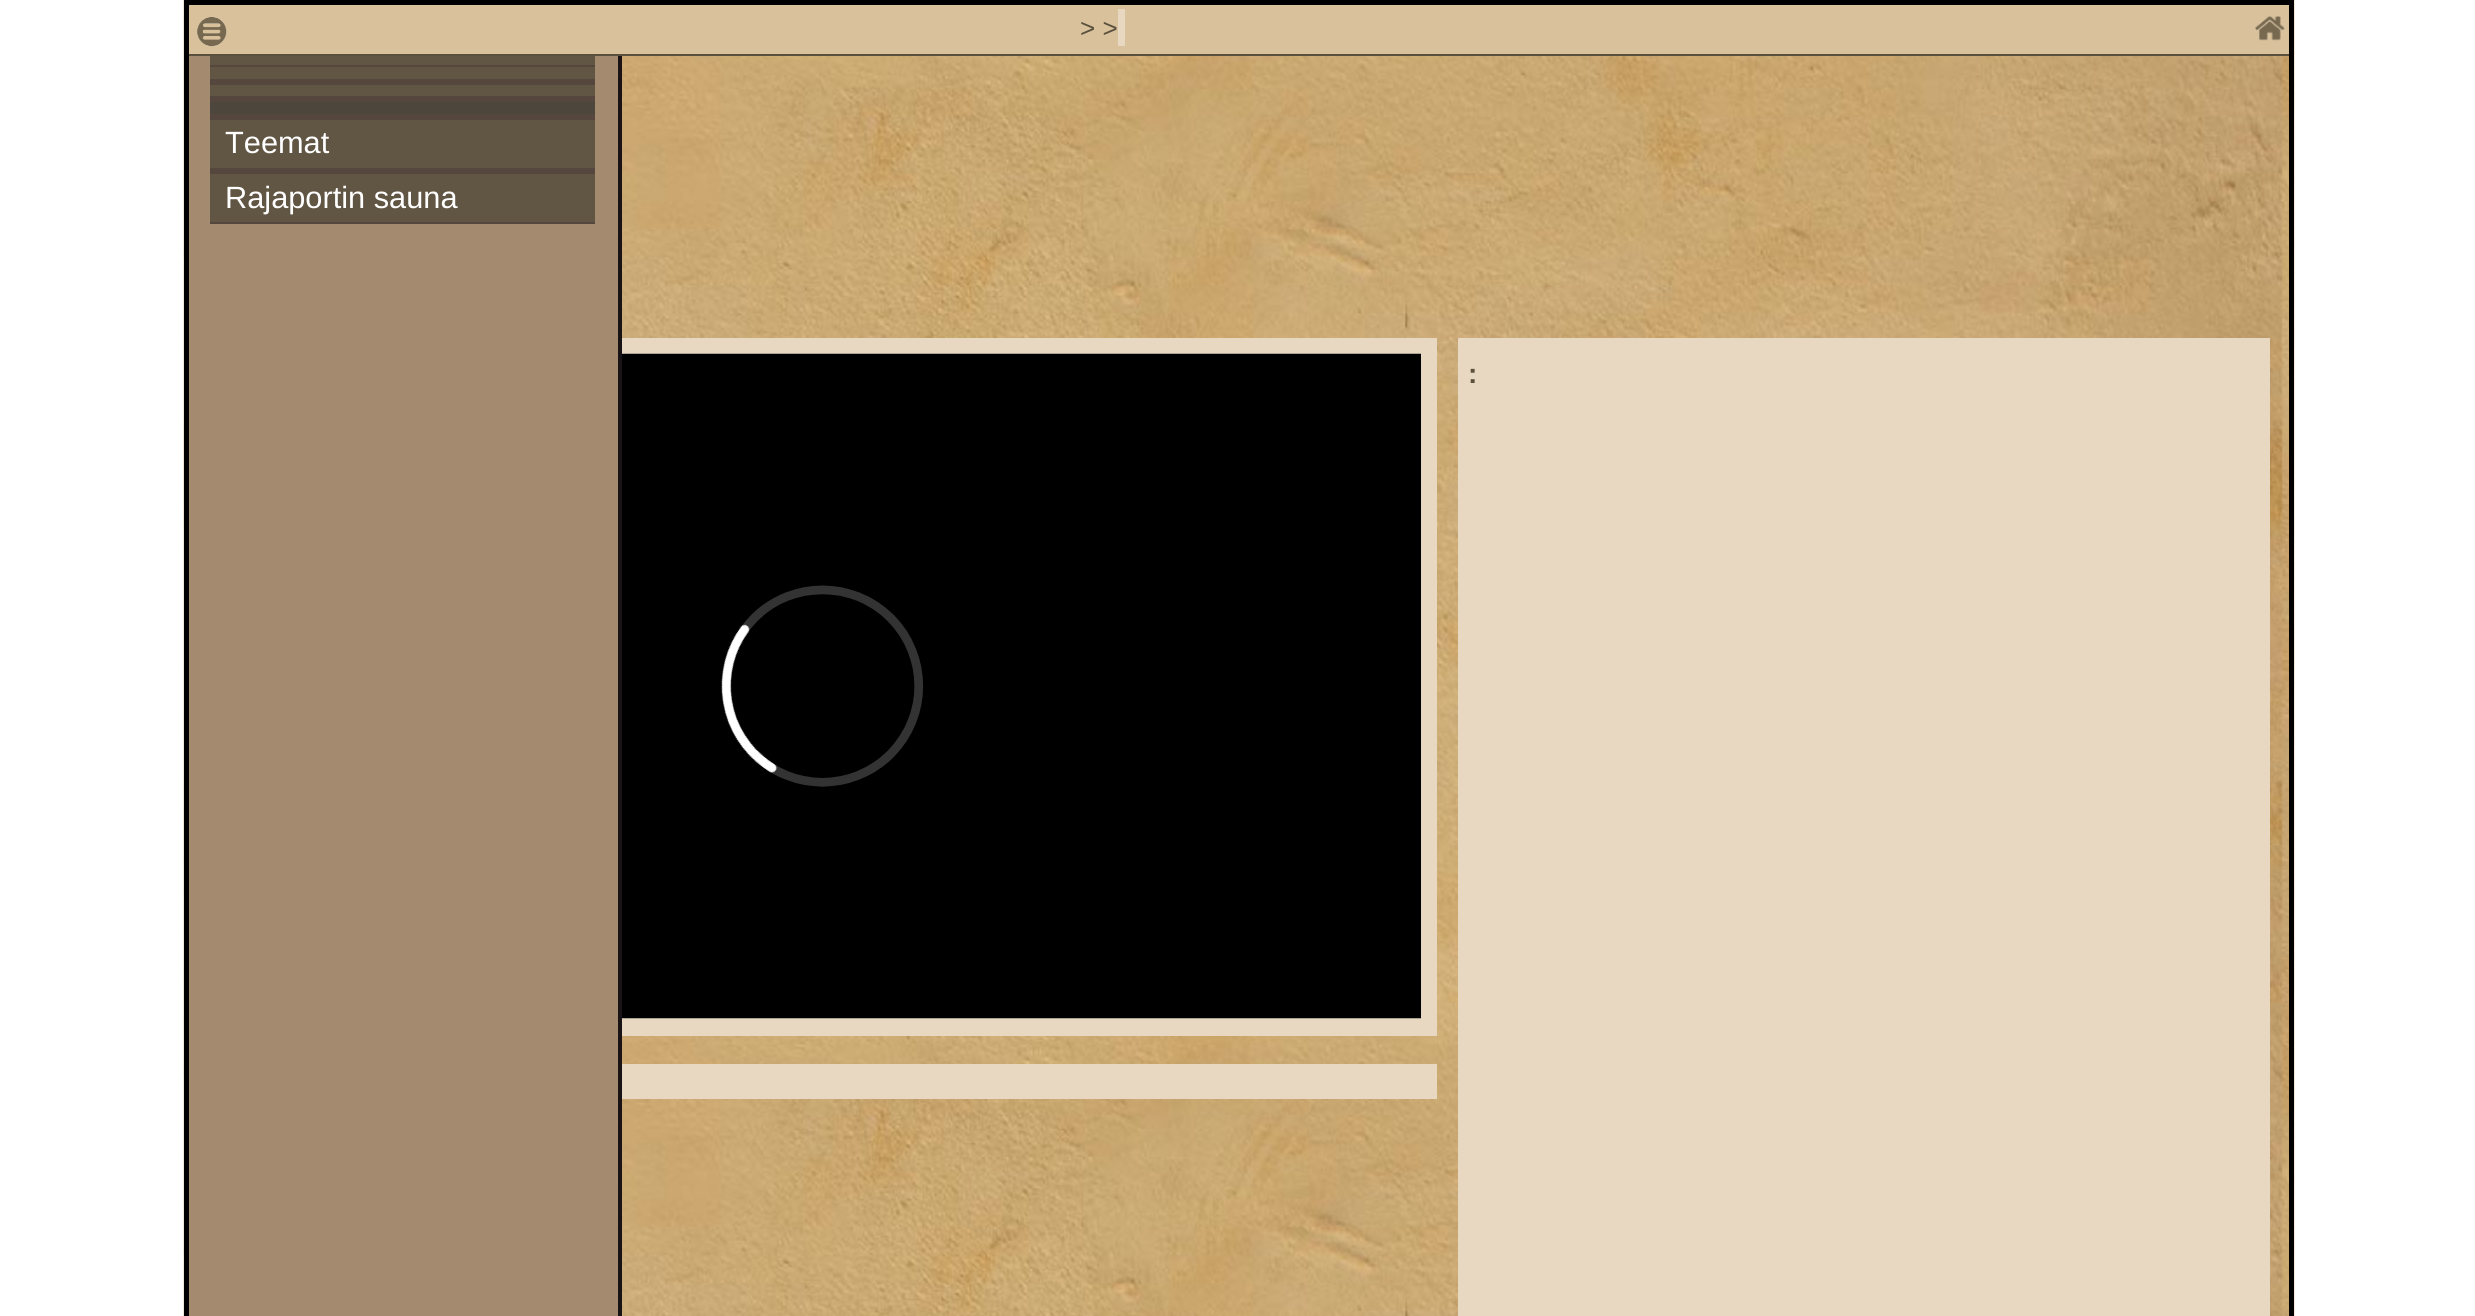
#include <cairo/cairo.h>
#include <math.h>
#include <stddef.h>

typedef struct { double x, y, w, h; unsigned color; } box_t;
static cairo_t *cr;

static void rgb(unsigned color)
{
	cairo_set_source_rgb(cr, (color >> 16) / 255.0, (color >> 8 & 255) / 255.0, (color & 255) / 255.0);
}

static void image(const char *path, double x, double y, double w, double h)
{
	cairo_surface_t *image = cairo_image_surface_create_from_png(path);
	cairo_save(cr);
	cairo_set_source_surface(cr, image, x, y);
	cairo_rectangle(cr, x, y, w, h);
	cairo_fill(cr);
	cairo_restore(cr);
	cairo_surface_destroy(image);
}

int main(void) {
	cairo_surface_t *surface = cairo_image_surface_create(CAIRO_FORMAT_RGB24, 2475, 1316);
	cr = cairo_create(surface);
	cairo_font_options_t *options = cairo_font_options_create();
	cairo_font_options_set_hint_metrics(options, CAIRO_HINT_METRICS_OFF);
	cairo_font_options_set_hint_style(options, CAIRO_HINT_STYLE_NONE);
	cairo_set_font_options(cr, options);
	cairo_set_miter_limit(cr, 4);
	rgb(0xffffff);
	cairo_paint(cr);
	image("img/1.png", 183, 0, 2112, 1316);
	cairo_rectangle(cr, 186.5, 2.5, 2105, 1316);
	rgb(0x000000);
	cairo_set_line_width(cr, 5);
	cairo_stroke(cr);
	{
		static const box_t items[] = {
			{618, 53, 4, 1263, 0x191316},
			{189, 5, 2100, 49, 0xd9c19b},
			{189, 54, 2100, 2, 0x59503d},
		};
		for (size_t i = 0; i < sizeof items / sizeof *items; i++) {
			rgb(items[i].color);
			cairo_rectangle(cr, items[i].x, items[i].y, items[i].w, items[i].h);
			cairo_fill(cr);
		}
	}
	image("img/2.png", 197, 16, 30, 31);
	rgb(0xe8d8c1);
	cairo_rectangle(cr, 1118, 9, 7, 37);
	cairo_fill(cr);
	image("img/3.png", 2255, 16, 30, 25);
	{
		static const box_t items[] = {
			{189, 56, 429, 1260, 0xa48b70},
			{210, 56, 385, 9, 0x615643},
			{210, 65, 385, 2, 0x55473e},
			{210, 67, 385, 12, 0x615643},
			{210, 79, 385, 6, 0x55473e},
			{210, 85, 385, 11, 0x615643},
			{210, 96, 385, 6, 0x55473e},
			{210, 102, 385, 12, 0x4d463c},
			{210, 114, 385, 6, 0x55473e},
			{210, 120, 385, 48, 0x615643},
			{210, 168, 385, 6, 0x55473e},
			{210, 174, 385, 48, 0x615643},
			{210, 222, 385, 2, 0x55473e},
			{622, 338, 815, 698, 0xe8d8c1},
		};
		for (size_t i = 0; i < sizeof items / sizeof *items; i++) {
			rgb(items[i].color);
			cairo_rectangle(cr, items[i].x, items[i].y, items[i].w, items[i].h);
			cairo_fill(cr);
		}
	}
	image("img/4.png", 622, 353, 799, 666);
	cairo_rectangle(cr, 622, 1064, 815, 35);
	cairo_fill(cr);
	cairo_rectangle(cr, 1458, 338, 812, 978);
	cairo_fill(cr);
	cairo_select_font_face(cr, "Liberation Sans", CAIRO_FONT_SLANT_NORMAL, CAIRO_FONT_WEIGHT_NORMAL);
	cairo_set_font_size(cr, 26);
	rgb(0x59503d);
	cairo_move_to(cr, 1080, 37);
	cairo_show_text(cr, "> >");
	cairo_set_font_size(cr, 30.75);
	rgb(0xffffff);
	cairo_move_to(cr, 225, 153);
	cairo_show_text(cr, "Teemat");
	cairo_move_to(cr, 225, 208);
	cairo_show_text(cr, "Rajaportin sauna");
	cairo_select_font_face(cr, "Liberation Sans", CAIRO_FONT_SLANT_NORMAL, CAIRO_FONT_WEIGHT_BOLD);
	cairo_set_font_size(cr, 28);
	rgb(0x59503d);
	cairo_move_to(cr, 1468, 383);
	cairo_show_text(cr, ":");
	cairo_surface_write_to_png(surface, "page.png");
	cairo_font_options_destroy(options);
	cairo_destroy(cr);
	cairo_surface_destroy(surface);
	return 0;
}
